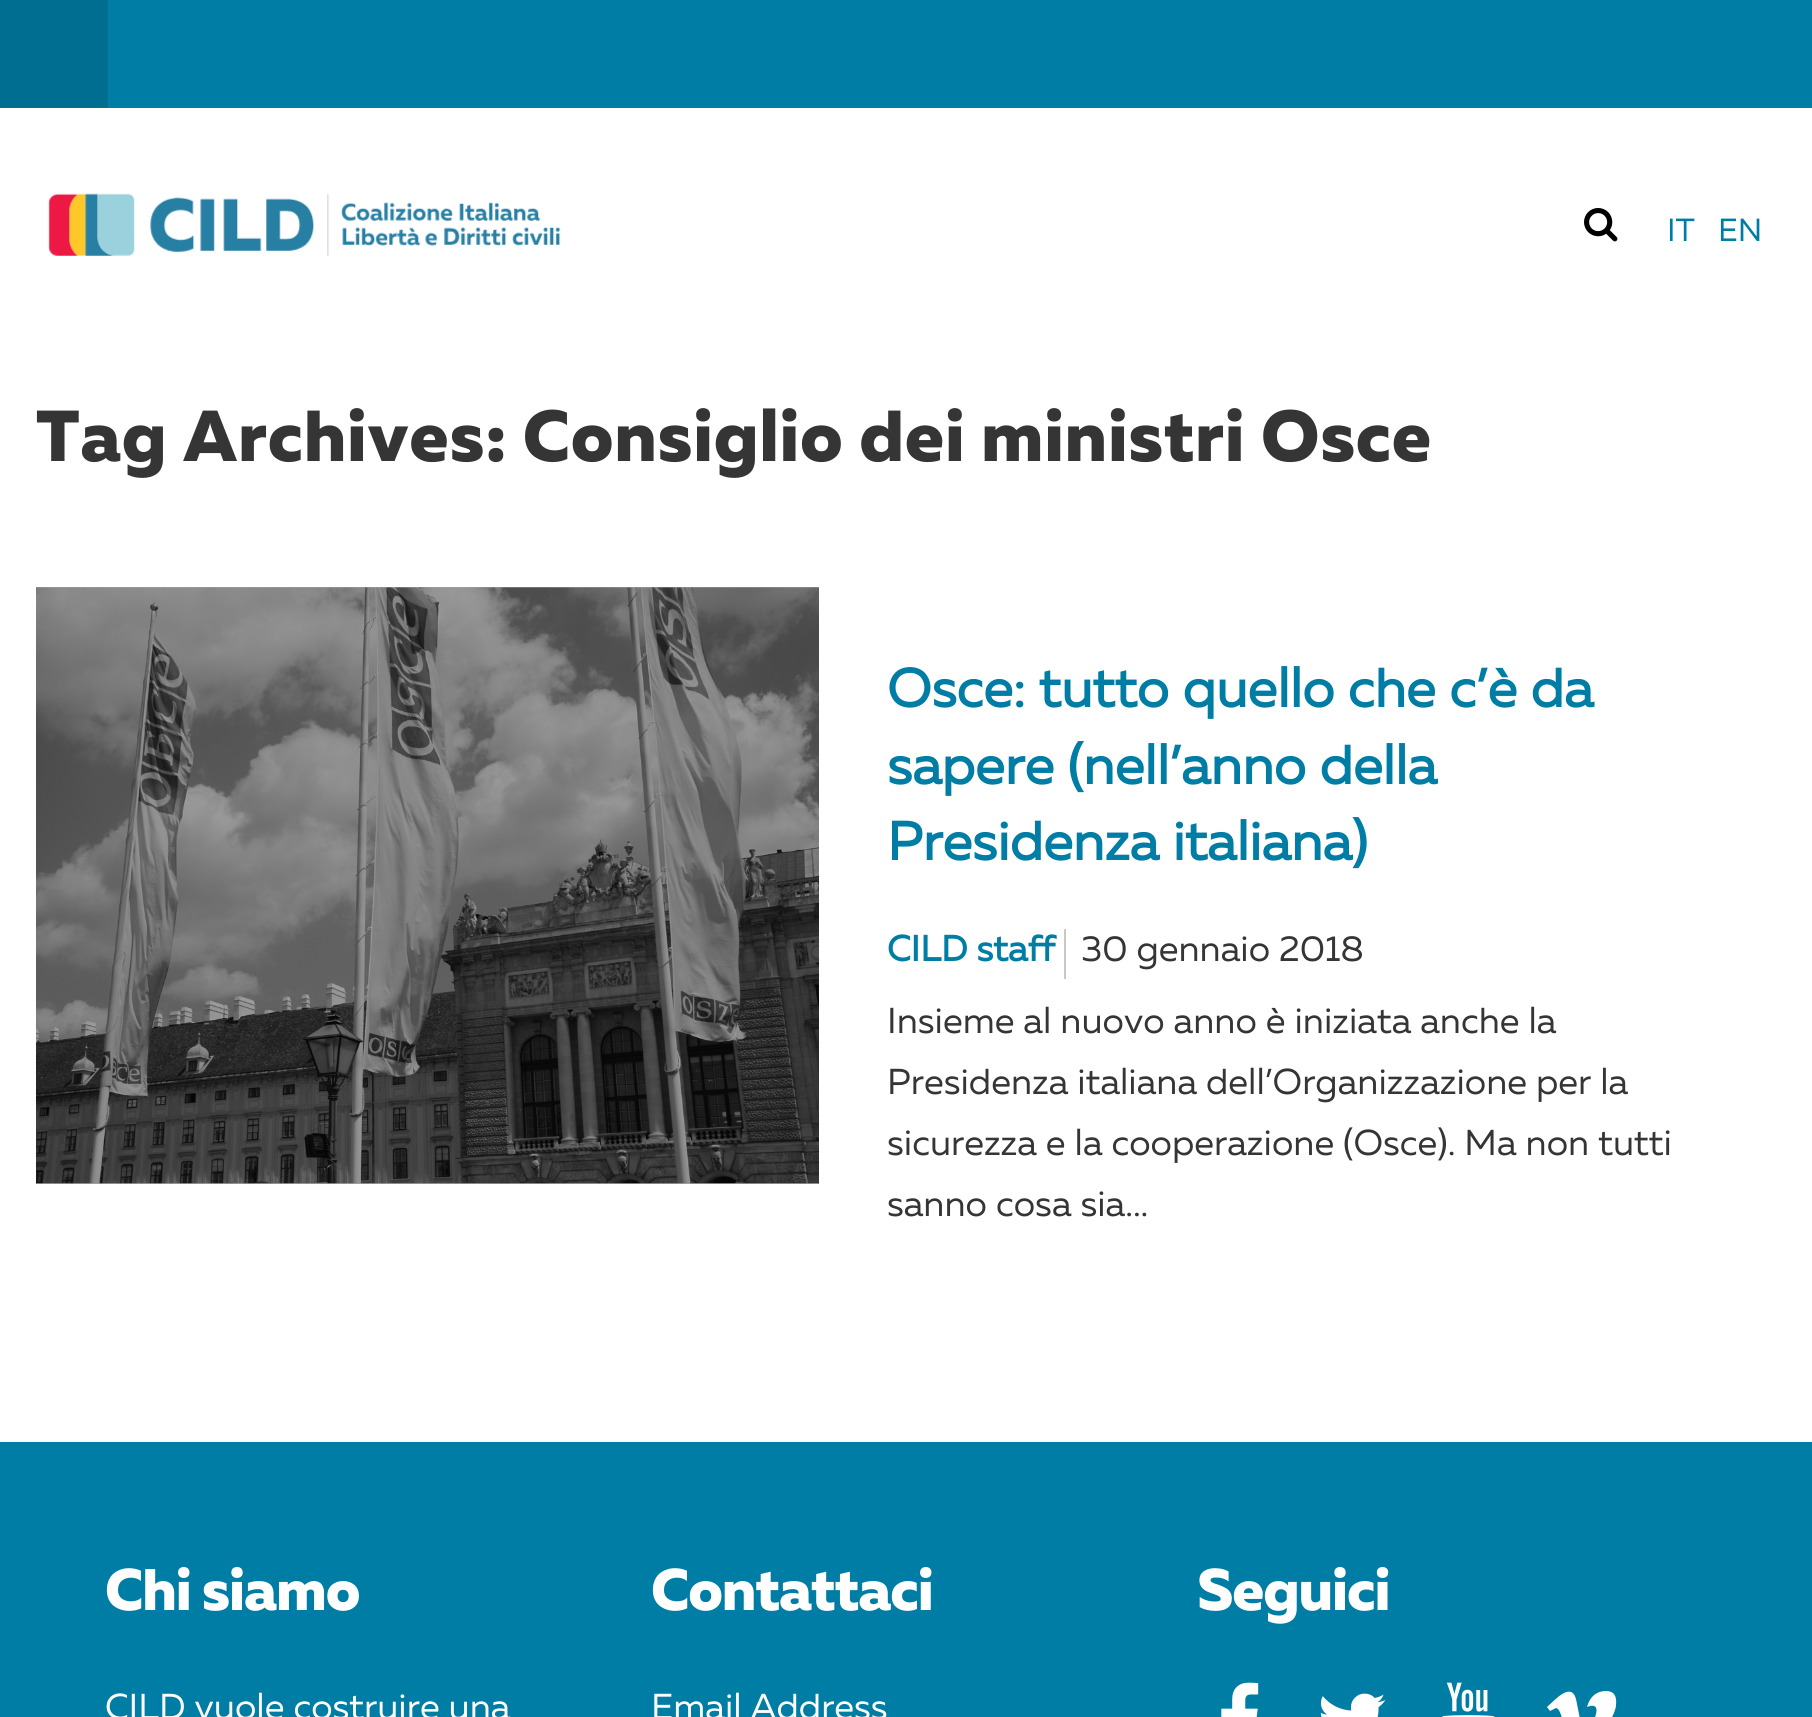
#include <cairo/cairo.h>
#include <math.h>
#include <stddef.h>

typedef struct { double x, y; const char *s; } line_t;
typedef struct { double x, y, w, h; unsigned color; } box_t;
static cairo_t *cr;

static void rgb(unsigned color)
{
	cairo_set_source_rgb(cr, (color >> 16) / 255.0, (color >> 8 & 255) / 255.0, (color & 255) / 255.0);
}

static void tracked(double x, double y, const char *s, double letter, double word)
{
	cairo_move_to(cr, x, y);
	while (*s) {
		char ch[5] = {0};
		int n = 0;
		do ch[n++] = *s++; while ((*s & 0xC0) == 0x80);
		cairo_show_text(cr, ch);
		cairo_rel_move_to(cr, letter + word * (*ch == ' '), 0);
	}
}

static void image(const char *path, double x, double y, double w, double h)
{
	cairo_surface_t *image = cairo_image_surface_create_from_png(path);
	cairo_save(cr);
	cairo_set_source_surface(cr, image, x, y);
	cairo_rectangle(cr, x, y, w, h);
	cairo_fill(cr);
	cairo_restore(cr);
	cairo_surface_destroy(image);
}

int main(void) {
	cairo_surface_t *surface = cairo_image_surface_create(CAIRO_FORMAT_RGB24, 1812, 1717);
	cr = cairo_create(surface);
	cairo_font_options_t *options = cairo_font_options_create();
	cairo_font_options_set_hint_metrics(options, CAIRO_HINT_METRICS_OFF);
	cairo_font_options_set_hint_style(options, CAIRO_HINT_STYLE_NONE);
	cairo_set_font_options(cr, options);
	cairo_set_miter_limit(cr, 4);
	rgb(0xffffff);
	cairo_paint(cr);
	{
		static const box_t items[] = {
			{36, 587, 783, 597, 0xa6a6a6},
			{108, 0, 1704, 108, 0x007da4},
			{0, 0, 108, 108, 0x006e90},
		};
		for (size_t i = 0; i < sizeof items / sizeof *items; i++) {
			rgb(items[i].color);
			cairo_rectangle(cr, items[i].x, items[i].y, items[i].w, items[i].h);
			cairo_fill(cr);
		}
	}
	image("img/1.png", 48, 193, 513, 63);
	image("img/2.png", 1584, 208, 34, 34);
	image("img/3.png", 36, 587, 783, 597);
	rgb(0xc8c8c8);
	cairo_rectangle(cr, 1064, 929, 2, 50);
	cairo_fill(cr);
	rgb(0x007da4);
	cairo_rectangle(cr, 0, 1442, 1812, 275);
	cairo_fill(cr);
	image("img/4.png", 1221, 1682, 38, 35);
	image("img/5.png", 1320, 1693, 66, 24);
	image("img/6.png", 1441, 1682, 54, 35);
	rgb(0xffffff);
	cairo_new_path(cr);
	cairo_move_to(cr, 1616, 1705);
	cairo_curve_to(cr, 1616, 1717, 1589, 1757, 1575, 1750);
	cairo_curve_to(cr, 1564, 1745, 1564, 1709, 1556, 1708);
	cairo_line_to(cr, 1550, 1711);
	cairo_line_to(cr, 1547, 1707);
	cairo_curve_to(cr, 1554, 1701, 1571, 1681, 1576, 1699);
	cairo_line_to(cr, 1580, 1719);
	cairo_curve_to(cr, 1581, 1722, 1582, 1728, 1585, 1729);
	cairo_curve_to(cr, 1590, 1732, 1607, 1699, 1587, 1707);
	cairo_curve_to(cr, 1590, 1696, 1597, 1691, 1606, 1691);
	cairo_curve_to(cr, 1614, 1691, 1617, 1696, 1616, 1705);
	cairo_close_path(cr);
	cairo_fill(cr);
	cairo_select_font_face(cr, "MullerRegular", CAIRO_FONT_SLANT_NORMAL, CAIRO_FONT_WEIGHT_NORMAL);
	cairo_set_font_size(cr, 32);
	rgb(0x007da4);
	cairo_move_to(cr, 1667, 241);
	cairo_show_text(cr, "IT");
	cairo_move_to(cr, 1718, 241);
	cairo_show_text(cr, "EN");
	cairo_select_font_face(cr, "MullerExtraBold", CAIRO_FONT_SLANT_NORMAL, CAIRO_FONT_WEIGHT_NORMAL);
	cairo_set_font_size(cr, 72);
	rgb(0x353535);
	tracked(36, 461, "Tag Archives: Consiglio dei ministri Osce", 0.7, 0);
	cairo_select_font_face(cr, "MullerRegular", CAIRO_FONT_SLANT_NORMAL, CAIRO_FONT_WEIGHT_BOLD);
	cairo_set_font_size(cr, 54);
	rgb(0x007da4);
	{
		static const line_t items[] = {
			{887, 707, "Osce: tutto quello che c’è da"},
			{887, 784, "sapere (nell’anno della"},
			{887, 860, "Presidenza italiana)"},
		};
		for (size_t i = 0; i < sizeof items / sizeof *items; i++) {
			cairo_move_to(cr, items[i].x, items[i].y);
			cairo_show_text(cr, items[i].s);
		}
	}
	cairo_set_font_size(cr, 36);
	cairo_move_to(cr, 887, 961);
	cairo_show_text(cr, "CILD staff");
	cairo_select_font_face(cr, "MullerRegular", CAIRO_FONT_SLANT_NORMAL, CAIRO_FONT_WEIGHT_NORMAL);
	rgb(0x353535);
	{
		static const line_t items[] = {
			{1081, 961, "30 gennaio 2018"},
			{887, 1033, "Insieme al nuovo anno è iniziata anche la"},
			{887, 1094, "Presidenza italiana dell’Organizzazione per la"},
			{887, 1155, "sicurezza e la cooperazione (Osce). Ma non tutti"},
			{887, 1216, "sanno cosa sia..."},
		};
		for (size_t i = 0; i < sizeof items / sizeof *items; i++) {
			cairo_move_to(cr, items[i].x, items[i].y);
			cairo_show_text(cr, items[i].s);
		}
	}
	cairo_select_font_face(cr, "MullerExtraBold", CAIRO_FONT_SLANT_NORMAL, CAIRO_FONT_WEIGHT_NORMAL);
	cairo_set_font_size(cr, 58.5);
	rgb(0xffffff);
	tracked(105, 1610, "Chi siamo", -1.1, 0);
	cairo_select_font_face(cr, "MullerRegular", CAIRO_FONT_SLANT_NORMAL, CAIRO_FONT_WEIGHT_NORMAL);
	cairo_set_font_size(cr, 36);
	cairo_move_to(cr, 105, 1719);
	cairo_show_text(cr, "CILD vuole costruire una");
	cairo_select_font_face(cr, "MullerExtraBold", CAIRO_FONT_SLANT_NORMAL, CAIRO_FONT_WEIGHT_NORMAL);
	cairo_set_font_size(cr, 58.5);
	tracked(651, 1610, "Contattaci", -1.1, 0);
	cairo_select_font_face(cr, "MullerRegular", CAIRO_FONT_SLANT_NORMAL, CAIRO_FONT_WEIGHT_NORMAL);
	cairo_set_font_size(cr, 36);
	cairo_move_to(cr, 651, 1719);
	cairo_show_text(cr, "Email Address");
	cairo_select_font_face(cr, "MullerExtraBold", CAIRO_FONT_SLANT_NORMAL, CAIRO_FONT_WEIGHT_NORMAL);
	cairo_set_font_size(cr, 58.5);
	tracked(1197, 1610, "Seguici", -1.1, 0);
	cairo_surface_write_to_png(surface, "page.png");
	cairo_font_options_destroy(options);
	cairo_destroy(cr);
	cairo_surface_destroy(surface);
	return 0;
}
